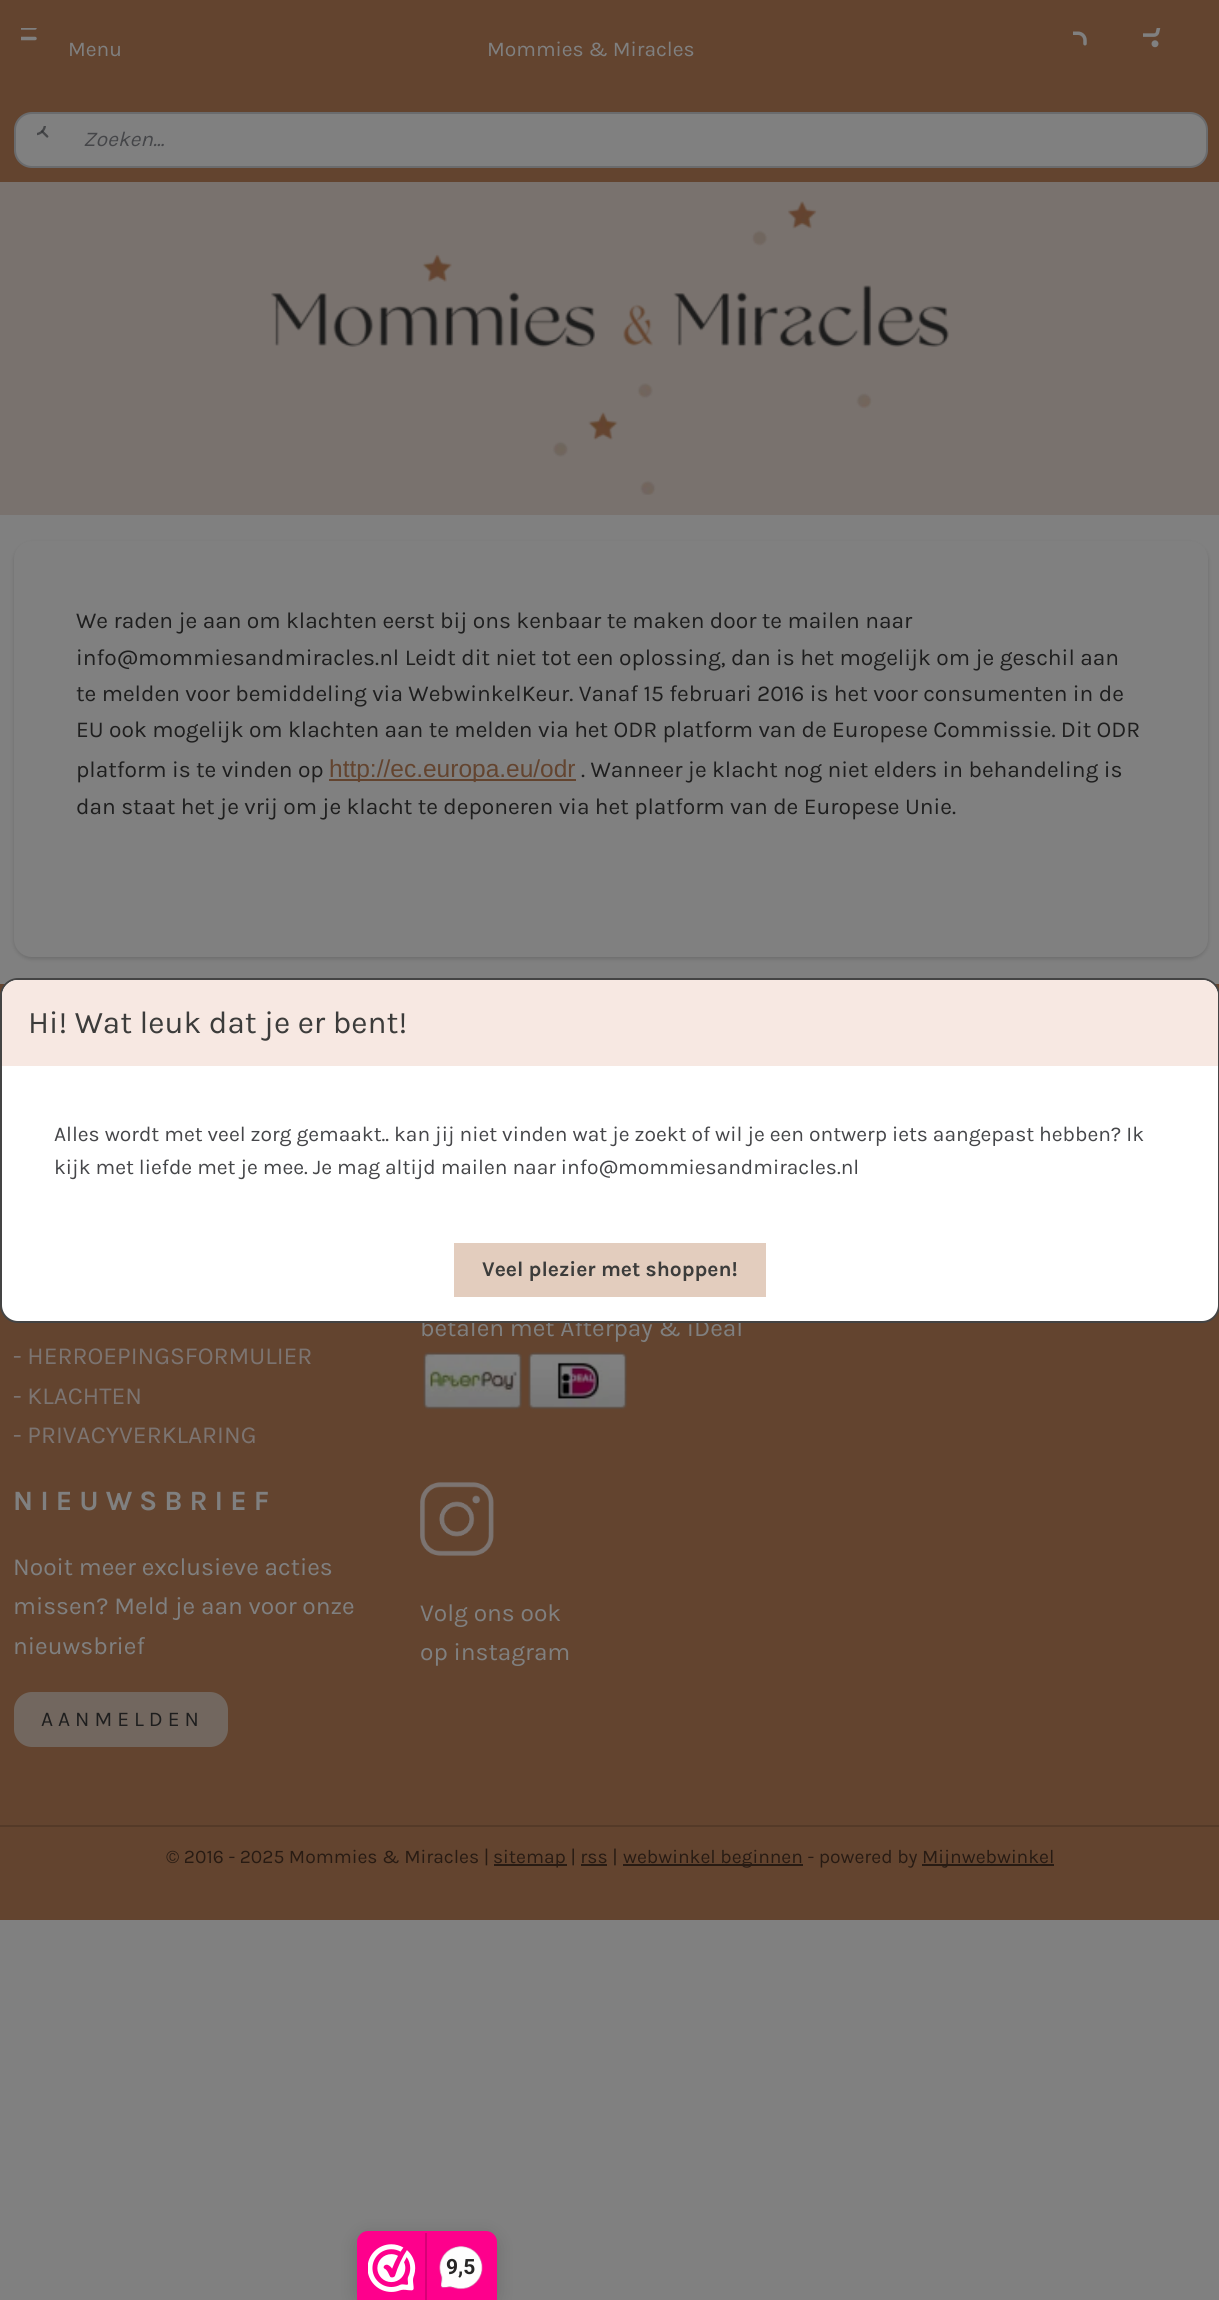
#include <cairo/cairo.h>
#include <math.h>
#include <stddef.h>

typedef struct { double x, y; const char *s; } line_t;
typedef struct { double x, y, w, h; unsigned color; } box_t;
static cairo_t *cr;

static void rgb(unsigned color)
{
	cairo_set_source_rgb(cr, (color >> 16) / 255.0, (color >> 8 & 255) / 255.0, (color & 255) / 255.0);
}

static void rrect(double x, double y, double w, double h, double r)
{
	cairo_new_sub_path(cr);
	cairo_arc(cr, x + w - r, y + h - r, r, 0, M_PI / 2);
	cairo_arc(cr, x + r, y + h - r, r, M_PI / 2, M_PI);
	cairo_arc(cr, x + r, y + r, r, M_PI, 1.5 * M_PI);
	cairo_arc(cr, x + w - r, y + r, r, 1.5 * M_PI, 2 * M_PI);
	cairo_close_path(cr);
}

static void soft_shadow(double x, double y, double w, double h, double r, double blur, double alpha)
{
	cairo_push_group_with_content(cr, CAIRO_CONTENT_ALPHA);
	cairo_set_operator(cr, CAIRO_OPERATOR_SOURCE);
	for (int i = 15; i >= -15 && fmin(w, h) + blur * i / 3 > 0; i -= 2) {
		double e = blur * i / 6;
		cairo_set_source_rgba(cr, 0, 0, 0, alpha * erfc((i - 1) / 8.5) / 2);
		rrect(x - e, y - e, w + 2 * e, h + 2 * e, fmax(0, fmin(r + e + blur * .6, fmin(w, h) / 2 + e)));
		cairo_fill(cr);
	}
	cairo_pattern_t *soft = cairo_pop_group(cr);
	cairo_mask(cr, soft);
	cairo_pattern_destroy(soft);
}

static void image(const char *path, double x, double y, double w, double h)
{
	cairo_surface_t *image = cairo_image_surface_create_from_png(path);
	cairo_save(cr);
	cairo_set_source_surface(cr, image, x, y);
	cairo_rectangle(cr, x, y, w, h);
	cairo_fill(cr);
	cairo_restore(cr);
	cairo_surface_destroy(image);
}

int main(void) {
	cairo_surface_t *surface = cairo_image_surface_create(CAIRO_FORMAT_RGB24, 1219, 2300);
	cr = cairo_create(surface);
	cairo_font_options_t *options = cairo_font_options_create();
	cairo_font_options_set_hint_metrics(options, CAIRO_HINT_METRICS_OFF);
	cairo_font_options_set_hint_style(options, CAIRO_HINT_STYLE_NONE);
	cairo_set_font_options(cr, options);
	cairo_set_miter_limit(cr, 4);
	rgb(0x808080);
	cairo_paint(cr);
	rgb(0x63442f);
	cairo_rectangle(cr, 0, 0, 1219, 182);
	cairo_fill(cr);
	image("img/1.png", 21, 28, 16, 13);
	image("img/2.png", 1073, 31, 14, 15);
	image("img/3.png", 1143, 28, 18, 20);
	rgb(0x79726e);
	cairo_rectangle(cr, 0, 182, 1219, 333);
	cairo_fill(cr);
	rgb(0x808080);
	rrect(15, 113, 1192, 54, 17);
	cairo_fill_preserve(cr);
	rgb(0x6a6b6d);
	cairo_stroke(cr);
	image("img/4.png", 37, 126, 12, 12);
	image("img/5.png", 271, 201, 678, 294);
	rgb(0x000000);
	soft_shadow(14, 543, 1194, 416, 18, 2, 0.15);
	rgb(0x808080);
	rrect(15, 542, 1192, 414, 17);
	cairo_fill_preserve(cr);
	cairo_stroke(cr);
	rgb(0x63442f);
	cairo_rectangle(cr, 329, 779, 247, 2);
	cairo_fill(cr);
	cairo_rectangle(cr, 0, 984, 1219, 841);
	cairo_fill(cr);
	image("img/6.png", 423, 1352, 99, 58);
	image("img/7.png", 528, 1352, 99, 58);
	rgb(0x72675f);
	rrect(14, 1692, 214, 55, 18);
	cairo_fill(cr);
	image("img/8.png", 420, 1482, 74, 74);
	{
		static const box_t items[] = {
			{0, 1827, 1219, 93, 0x63442f},
			{0, 1825, 1219, 2, 0x543a28},
			{494, 1864, 73, 2, 0x281b13},
			{623, 1864, 180, 2, 0x281b13},
			{922, 1864, 132, 2, 0x281b13},
			{581, 1864, 26, 2, 0x281b13},
		};
		for (size_t i = 0; i < sizeof items / sizeof *items; i++) {
			rgb(items[i].color);
			cairo_rectangle(cr, items[i].x, items[i].y, items[i].w, items[i].h);
			cairo_fill(cr);
		}
	}
	rgb(0x000000);
	soft_shadow(357, 2235, 140, 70, 11, 9, 0.15);
	rgb(0xfe008c);
	cairo_new_path(cr);
	cairo_move_to(cr, 368, 2231);
	cairo_line_to(cr, 486, 2231);
	cairo_curve_to(cr, 492, 2231, 497, 2236, 497, 2242);
	cairo_line_to(cr, 497, 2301);
	cairo_line_to(cr, 357, 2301);
	cairo_line_to(cr, 357, 2242);
	cairo_curve_to(cr, 357, 2236, 362, 2231, 368, 2231);
	cairo_close_path(cr);
	cairo_fill(cr);
	image("img/9.png", 368, 2244, 48, 48);
	rgb(0xd80077);
	cairo_rectangle(cr, 425, 2233, 2, 67);
	cairo_fill(cr);
	image("img/10.png", 439, 2246, 44, 44);
	cairo_select_font_face(cr, "Karla", CAIRO_FONT_SLANT_NORMAL, CAIRO_FONT_WEIGHT_NORMAL);
	cairo_set_font_size(cr, 21);
	rgb(0x808080);
	cairo_move_to(cr, 68, 56);
	cairo_show_text(cr, "Menu");
	cairo_move_to(cr, 487, 56);
	cairo_show_text(cr, "Mommies & Miracles");
	cairo_select_font_face(cr, "Karla", CAIRO_FONT_SLANT_ITALIC, CAIRO_FONT_WEIGHT_NORMAL);
	rgb(0x454649);
	cairo_move_to(cr, 83, 146);
	cairo_show_text(cr, "Zoeken...");
	cairo_select_font_face(cr, "Karla", CAIRO_FONT_SLANT_NORMAL, CAIRO_FONT_WEIGHT_NORMAL);
	cairo_set_font_size(cr, 22.75);
	rgb(0x1e1e1e);
	{
		static const line_t items[] = {
			{76, 628, "We raden je aan om klachten eerst bij ons kenbaar te maken door te mailen naar"},
			{76, 665, "info@mommiesandmiracles.nl Leidt dit niet tot een oplossing, dan is het mogelijk om je geschil aan"},
			{76, 701, "te melden voor bemiddeling via WebwinkelKeur. Vanaf 15 februari 2016 is het voor consumenten in de"},
			{76, 737, "EU ook mogelijk om klachten aan te melden via het ODR platform van de Europese Commissie. Dit ODR"},
			{76, 777, "platform is te vinden op"},
		};
		for (size_t i = 0; i < sizeof items / sizeof *items; i++) {
			cairo_move_to(cr, items[i].x, items[i].y);
			cairo_show_text(cr, items[i].s);
		}
	}
	cairo_select_font_face(cr, "Liberation Sans", CAIRO_FONT_SLANT_NORMAL, CAIRO_FONT_WEIGHT_NORMAL);
	cairo_set_font_size(cr, 24.5);
	rgb(0x63442f);
	cairo_move_to(cr, 329, 777);
	cairo_show_text(cr, "http://ec.europa.eu/odr");
	cairo_select_font_face(cr, "Karla", CAIRO_FONT_SLANT_NORMAL, CAIRO_FONT_WEIGHT_NORMAL);
	cairo_set_font_size(cr, 22.75);
	rgb(0x1e1e1e);
	cairo_move_to(cr, 581, 777);
	cairo_show_text(cr, ". Wanneer je klacht nog niet elders in behandeling is");
	cairo_move_to(cr, 76, 814);
	cairo_show_text(cr, "dan staat het je vrij om je klacht te deponeren via het platform van de Europese Unie.");
	cairo_set_font_size(cr, 24.5);
	rgb(0x808080);
	cairo_move_to(cr, 420, 1336);
	cairo_show_text(cr, "betalen met Afterpay & iDeal");
	rgb(0x7c7471);
	{
		static const line_t items[] = {
			{13, 1364, "- HERROEPINGSFORMULIER"},
			{13, 1404, "- KLACHTEN"},
			{13, 1443, "- PRIVACYVERKLARING"},
		};
		for (size_t i = 0; i < sizeof items / sizeof *items; i++) {
			cairo_move_to(cr, items[i].x, items[i].y);
			cairo_show_text(cr, items[i].s);
		}
	}
	cairo_select_font_face(cr, "Karla", CAIRO_FONT_SLANT_NORMAL, CAIRO_FONT_WEIGHT_BOLD);
	cairo_set_font_size(cr, 28);
	rgb(0x808080);
	cairo_move_to(cr, 13, 1510);
	cairo_show_text(cr, "N I E U W S B R I E F");
	cairo_select_font_face(cr, "Karla", CAIRO_FONT_SLANT_NORMAL, CAIRO_FONT_WEIGHT_NORMAL);
	cairo_set_font_size(cr, 24.5);
	{
		static const line_t items[] = {
			{13, 1575, "Nooit meer exclusieve acties"},
			{13, 1614, "missen? Meld je aan voor onze"},
			{13, 1654, "nieuwsbrief"},
		};
		for (size_t i = 0; i < sizeof items / sizeof *items; i++) {
			cairo_move_to(cr, items[i].x, items[i].y);
			cairo_show_text(cr, items[i].s);
		}
	}
	cairo_set_font_size(cr, 21);
	rgb(0x1e1e1e);
	cairo_move_to(cr, 41, 1726);
	cairo_show_text(cr, "A A N M E L D E N");
	cairo_set_font_size(cr, 24.5);
	rgb(0x808080);
	cairo_move_to(cr, 420, 1621);
	cairo_show_text(cr, "Volg ons ook");
	cairo_move_to(cr, 420, 1660);
	cairo_show_text(cr, "op instagram");
	cairo_set_font_size(cr, 19.25);
	rgb(0x281b13);
	{
		static const line_t items[] = {
			{166, 1863, "© 2016 - 2025 Mommies & Miracles |"},
			{493, 1863, "sitemap | rss |"},
			{623, 1863, "webwinkel beginnen - powered by"},
			{922, 1863, "Mijnwebwinkel"},
		};
		for (size_t i = 0; i < sizeof items / sizeof *items; i++) {
			cairo_move_to(cr, items[i].x, items[i].y);
			cairo_show_text(cr, items[i].s);
		}
	}
	rgb(0xffffff);
	rrect(1, 979, 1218, 343, 17);
	cairo_fill_preserve(cr);
	rgb(0x444444);
	cairo_stroke(cr);
	rgb(0xf7e8e2);
	cairo_new_path(cr);
	cairo_move_to(cr, 18, 980);
	cairo_line_to(cr, 1202, 980);
	cairo_curve_to(cr, 1211, 980, 1218, 987, 1218, 996);
	cairo_line_to(cr, 1218, 1066);
	cairo_line_to(cr, 2, 1066);
	cairo_line_to(cr, 2, 996);
	cairo_curve_to(cr, 2, 987, 9, 980, 18, 980);
	cairo_close_path(cr);
	cairo_fill(cr);
	cairo_set_font_size(cr, 31.5);
	rgb(0x3c3c3b);
	cairo_move_to(cr, 28, 1033);
	cairo_show_text(cr, "Hi! Wat leuk dat je er bent!");
	cairo_set_font_size(cr, 21);
	rgb(0x454649);
	cairo_move_to(cr, 54, 1141);
	cairo_show_text(cr, "Alles wordt met veel zorg gemaakt.. kan jij niet vinden wat je zoekt of wil je een ontwerp iets aangepast hebben? Ik");
	cairo_move_to(cr, 54, 1174);
	cairo_show_text(cr, "kijk met liefde met je mee. Je mag altijd mailen naar info@mommiesandmiracles.nl");
	rgb(0xe3cdbe);
	cairo_rectangle(cr, 454, 1243, 312, 54);
	cairo_fill(cr);
	cairo_select_font_face(cr, "Karla", CAIRO_FONT_SLANT_NORMAL, CAIRO_FONT_WEIGHT_BOLD);
	rgb(0x3c3c3b);
	cairo_move_to(cr, 482, 1276);
	cairo_show_text(cr, "Veel plezier met shoppen!");
	cairo_select_font_face(cr, "Roboto", CAIRO_FONT_SLANT_NORMAL, CAIRO_FONT_WEIGHT_BOLD);
	rgb(0x272626);
	cairo_move_to(cr, 446, 2274);
	cairo_show_text(cr, "9,5");
	cairo_surface_write_to_png(surface, "page.png");
	cairo_font_options_destroy(options);
	cairo_destroy(cr);
	cairo_surface_destroy(surface);
	return 0;
}
